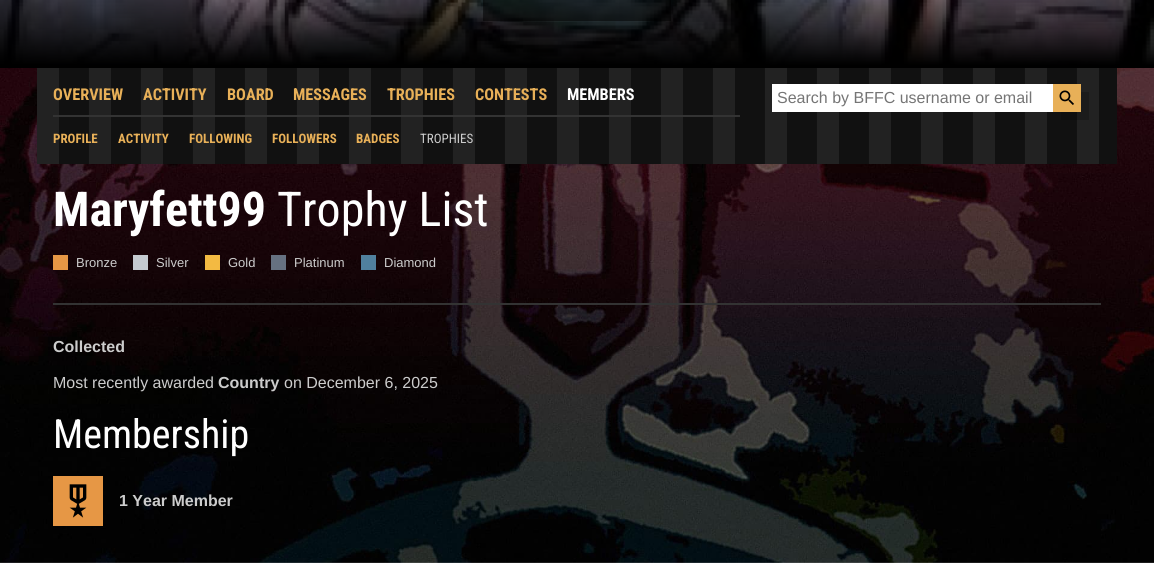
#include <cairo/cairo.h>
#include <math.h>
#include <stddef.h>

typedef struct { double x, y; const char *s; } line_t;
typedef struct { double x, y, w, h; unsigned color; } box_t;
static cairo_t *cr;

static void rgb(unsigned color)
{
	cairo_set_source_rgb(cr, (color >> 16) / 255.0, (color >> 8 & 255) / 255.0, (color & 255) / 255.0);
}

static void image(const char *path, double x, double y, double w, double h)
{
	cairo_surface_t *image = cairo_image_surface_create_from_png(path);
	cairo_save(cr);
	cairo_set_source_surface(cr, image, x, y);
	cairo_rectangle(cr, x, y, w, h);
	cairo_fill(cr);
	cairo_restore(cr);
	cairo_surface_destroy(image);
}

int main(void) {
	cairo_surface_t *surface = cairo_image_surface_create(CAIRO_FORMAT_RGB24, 1154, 563);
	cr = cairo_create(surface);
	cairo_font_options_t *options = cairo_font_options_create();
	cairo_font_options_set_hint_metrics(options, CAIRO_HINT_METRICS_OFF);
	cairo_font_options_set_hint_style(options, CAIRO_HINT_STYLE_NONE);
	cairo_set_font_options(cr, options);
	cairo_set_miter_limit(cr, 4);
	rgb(0xffffff);
	cairo_paint(cr);
	image("img/1.png", 0, 68, 1154, 495);
	image("img/2.png", 0, 0, 1154, 68);
	cairo_set_source_rgba(cr, 0, 0, 0, 0.5);
	cairo_rectangle(cr, 483, 0, 188, 21);
	cairo_fill(cr);
	rgb(0x222222);
	cairo_rectangle(cr, 37, 68, 1080, 96);
	cairo_fill(cr);
	image("img/3.png", 59, 68, 1058, 96);
	rgb(0x333333);
	cairo_rectangle(cr, 53, 115, 687, 2);
	cairo_fill(cr);
	rgb(0xffffff);
	cairo_rectangle(cr, 772, 84, 281, 28);
	cairo_fill(cr);
	cairo_set_source_rgba(cr, 0, 0, 0, 0.2);
	cairo_new_path(cr);
	cairo_move_to(cr, 1061, 112);
	cairo_line_to(cr, 1061, 120);
	cairo_line_to(cr, 1089, 120);
	cairo_line_to(cr, 1089, 92);
	cairo_line_to(cr, 1081, 92);
	cairo_line_to(cr, 1081, 112);
	cairo_close_path(cr);
	cairo_fill(cr);
	rgb(0xe8b058);
	cairo_rectangle(cr, 1053, 84, 28, 28);
	cairo_fill(cr);
	image("img/4.png", 1059, 90, 15, 15);
	{
		static const box_t items[] = {
			{53, 255, 15, 15, 0xe69745},
			{133, 255, 15, 15, 0xc4cad0},
			{205, 255, 15, 15, 0xf3ba42},
			{271, 255, 15, 15, 0x667181},
			{361, 255, 15, 15, 0x50809e},
			{53, 303, 1048, 2, 0x333333},
			{53, 476, 50, 50, 0xe69745},
		};
		for (size_t i = 0; i < sizeof items / sizeof *items; i++) {
			rgb(items[i].color);
			cairo_rectangle(cr, items[i].x, items[i].y, items[i].w, items[i].h);
			cairo_fill(cr);
		}
	}
	image("img/5.png", 69, 484, 18, 34);
	cairo_select_font_face(cr, "Roboto Condensed", CAIRO_FONT_SLANT_NORMAL, CAIRO_FONT_WEIGHT_BOLD);
	cairo_set_font_size(cr, 16.25);
	rgb(0xe8b058);
	{
		static const line_t items[] = {
			{53, 100, "OVERVIEW"},
			{143, 100, "ACTIVITY"},
			{227, 100, "BOARD"},
			{293, 100, "MESSAGES"},
			{387, 100, "TROPHIES"},
			{475, 100, "CONTESTS"},
		};
		for (size_t i = 0; i < sizeof items / sizeof *items; i++) {
			cairo_move_to(cr, items[i].x, items[i].y);
			cairo_show_text(cr, items[i].s);
		}
	}
	rgb(0xffffff);
	cairo_move_to(cr, 567, 100);
	cairo_show_text(cr, "MEMBERS");
	cairo_set_font_size(cr, 13);
	rgb(0xe8b058);
	{
		static const line_t items[] = {
			{53, 143, "PROFILE"},
			{118, 143, "ACTIVITY"},
			{189, 143, "FOLLOWING"},
			{272, 143, "FOLLOWERS"},
			{356, 143, "BADGES"},
		};
		for (size_t i = 0; i < sizeof items / sizeof *items; i++) {
			cairo_move_to(cr, items[i].x, items[i].y);
			cairo_show_text(cr, items[i].s);
		}
	}
	cairo_select_font_face(cr, "Roboto Condensed", CAIRO_FONT_SLANT_NORMAL, CAIRO_FONT_WEIGHT_NORMAL);
	rgb(0xcccccc);
	cairo_move_to(cr, 420, 143);
	cairo_show_text(cr, "TROPHIES");
	cairo_select_font_face(cr, "Liberation Sans", CAIRO_FONT_SLANT_NORMAL, CAIRO_FONT_WEIGHT_NORMAL);
	cairo_set_font_size(cr, 16);
	rgb(0x757575);
	cairo_move_to(cr, 777, 103);
	cairo_show_text(cr, "Search by BFFC username or email");
	cairo_select_font_face(cr, "Roboto Condensed", CAIRO_FONT_SLANT_NORMAL, CAIRO_FONT_WEIGHT_BOLD);
	cairo_set_font_size(cr, 48);
	rgb(0xffffff);
	cairo_move_to(cr, 53, 226);
	cairo_show_text(cr, "Maryfett99");
	cairo_select_font_face(cr, "Roboto Condensed", CAIRO_FONT_SLANT_NORMAL, CAIRO_FONT_WEIGHT_NORMAL);
	cairo_move_to(cr, 277, 226);
	cairo_show_text(cr, "Trophy List");
	cairo_select_font_face(cr, "Liberation Sans", CAIRO_FONT_SLANT_NORMAL, CAIRO_FONT_WEIGHT_NORMAL);
	cairo_set_font_size(cr, 13);
	rgb(0xcccccc);
	{
		static const line_t items[] = {
			{76, 267, "Bronze"},
			{156, 267, "Silver"},
			{228, 267, "Gold"},
			{294, 267, "Platinum"},
			{384, 267, "Diamond"},
		};
		for (size_t i = 0; i < sizeof items / sizeof *items; i++) {
			cairo_move_to(cr, items[i].x, items[i].y);
			cairo_show_text(cr, items[i].s);
		}
	}
	cairo_select_font_face(cr, "Liberation Sans", CAIRO_FONT_SLANT_NORMAL, CAIRO_FONT_WEIGHT_BOLD);
	cairo_set_font_size(cr, 16);
	cairo_move_to(cr, 53, 352);
	cairo_show_text(cr, "Collected");
	cairo_select_font_face(cr, "Liberation Sans", CAIRO_FONT_SLANT_NORMAL, CAIRO_FONT_WEIGHT_NORMAL);
	cairo_move_to(cr, 53, 388);
	cairo_show_text(cr, "Most recently awarded");
	cairo_select_font_face(cr, "Liberation Sans", CAIRO_FONT_SLANT_NORMAL, CAIRO_FONT_WEIGHT_BOLD);
	cairo_move_to(cr, 218, 388);
	cairo_show_text(cr, "Country");
	cairo_select_font_face(cr, "Liberation Sans", CAIRO_FONT_SLANT_NORMAL, CAIRO_FONT_WEIGHT_NORMAL);
	cairo_move_to(cr, 284, 388);
	cairo_show_text(cr, "on December 6, 2025");
	cairo_select_font_face(cr, "Roboto Condensed", CAIRO_FONT_SLANT_NORMAL, CAIRO_FONT_WEIGHT_NORMAL);
	cairo_set_font_size(cr, 40);
	rgb(0xffffff);
	cairo_move_to(cr, 53, 448);
	cairo_show_text(cr, "Membership");
	cairo_select_font_face(cr, "Liberation Sans", CAIRO_FONT_SLANT_NORMAL, CAIRO_FONT_WEIGHT_BOLD);
	cairo_set_font_size(cr, 16);
	rgb(0xcccccc);
	cairo_move_to(cr, 119, 506);
	cairo_show_text(cr, "1 Year Member");
	cairo_surface_write_to_png(surface, "page.png");
	cairo_font_options_destroy(options);
	cairo_destroy(cr);
	cairo_surface_destroy(surface);
	return 0;
}
